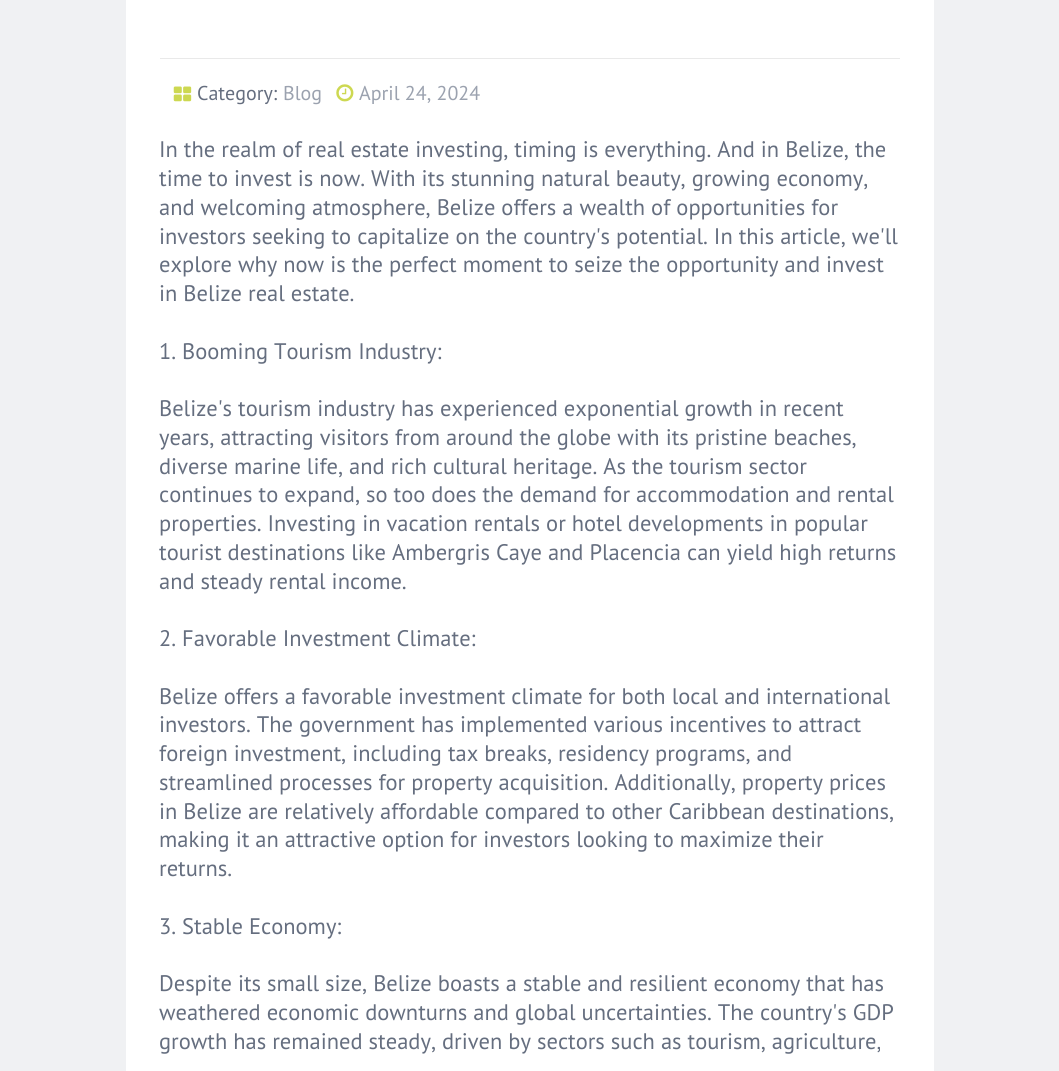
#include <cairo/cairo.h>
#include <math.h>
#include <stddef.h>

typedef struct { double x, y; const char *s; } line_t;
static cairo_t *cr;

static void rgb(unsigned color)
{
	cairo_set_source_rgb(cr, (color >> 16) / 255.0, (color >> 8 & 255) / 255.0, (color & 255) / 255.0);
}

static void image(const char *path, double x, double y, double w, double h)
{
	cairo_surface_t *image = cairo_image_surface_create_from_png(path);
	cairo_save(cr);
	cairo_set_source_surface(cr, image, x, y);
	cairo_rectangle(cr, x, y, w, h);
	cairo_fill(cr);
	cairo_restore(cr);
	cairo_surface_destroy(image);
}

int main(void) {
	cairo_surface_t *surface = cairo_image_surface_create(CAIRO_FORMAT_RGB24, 1059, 1071);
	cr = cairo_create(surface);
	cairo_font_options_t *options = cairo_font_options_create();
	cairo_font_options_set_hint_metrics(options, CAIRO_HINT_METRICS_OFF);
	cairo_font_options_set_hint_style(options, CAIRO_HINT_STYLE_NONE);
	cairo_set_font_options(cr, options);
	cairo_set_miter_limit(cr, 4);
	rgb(0xf0f1f3);
	cairo_paint(cr);
	rgb(0xffffff);
	cairo_rectangle(cr, 126, 0, 808, 1071);
	cairo_fill(cr);
	rgb(0xe9e9e9);
	cairo_rectangle(cr, 160, 58, 740, 1);
	cairo_fill(cr);
	image("img/1.png", 173, 86, 19, 16);
	image("img/2.png", 336, 84, 18, 18);
	cairo_select_font_face(cr, "PT Sans", CAIRO_FONT_SLANT_NORMAL, CAIRO_FONT_WEIGHT_NORMAL);
	cairo_set_font_size(cr, 20);
	rgb(0x656e7f);
	cairo_move_to(cr, 197, 100);
	cairo_show_text(cr, "Category:");
	rgb(0x9ba2af);
	cairo_move_to(cr, 283, 100);
	cairo_show_text(cr, "Blog");
	cairo_move_to(cr, 359, 100);
	cairo_show_text(cr, "April 24, 2024");
	cairo_set_font_size(cr, 22.5);
	rgb(0x656e7f);
	{
		static const line_t items[] = {
			{159, 157, "In the realm of real estate investing, timing is everything. And in Belize, the"},
			{159, 186, "time to invest is now. With its stunning natural beauty, growing economy,"},
			{159, 215, "and welcoming atmosphere, Belize offers a wealth of opportunities for"},
			{159, 244, "investors seeking to capitalize on the country's potential. In this article, we'll"},
			{159, 272, "explore why now is the perfect moment to seize the opportunity and invest"},
			{159, 301, "in Belize real estate."},
			{159, 359, "1. Booming Tourism Industry:"},
			{159, 416, "Belize's tourism industry has experienced exponential growth in recent"},
			{159, 445, "years, attracting visitors from around the globe with its pristine beaches,"},
			{159, 474, "diverse marine life, and rich cultural heritage. As the tourism sector"},
			{159, 502, "continues to expand, so too does the demand for accommodation and rental"},
			{159, 531, "properties. Investing in vacation rentals or hotel developments in popular"},
			{159, 560, "tourist destinations like Ambergris Caye and Placencia can yield high returns"},
			{159, 589, "and steady rental income."},
			{159, 646, "2. Favorable Investment Climate:"},
			{159, 704, "Belize offers a favorable investment climate for both local and international"},
			{159, 732, "investors. The government has implemented various incentives to attract"},
			{159, 761, "foreign investment, including tax breaks, residency programs, and"},
			{159, 790, "streamlined processes for property acquisition. Additionally, property prices"},
			{159, 819, "in Belize are relatively affordable compared to other Caribbean destinations,"},
			{159, 847, "making it an attractive option for investors looking to maximize their"},
			{159, 876, "returns."},
			{159, 934, "3. Stable Economy:"},
			{159, 991, "Despite its small size, Belize boasts a stable and resilient economy that has"},
			{159, 1020, "weathered economic downturns and global uncertainties. The country's GDP"},
			{159, 1049, "growth has remained steady, driven by sectors such as tourism, agriculture,"},
		};
		for (size_t i = 0; i < sizeof items / sizeof *items; i++) {
			cairo_move_to(cr, items[i].x, items[i].y);
			cairo_show_text(cr, items[i].s);
		}
	}
	cairo_surface_write_to_png(surface, "page.png");
	cairo_font_options_destroy(options);
	cairo_destroy(cr);
	cairo_surface_destroy(surface);
	return 0;
}
